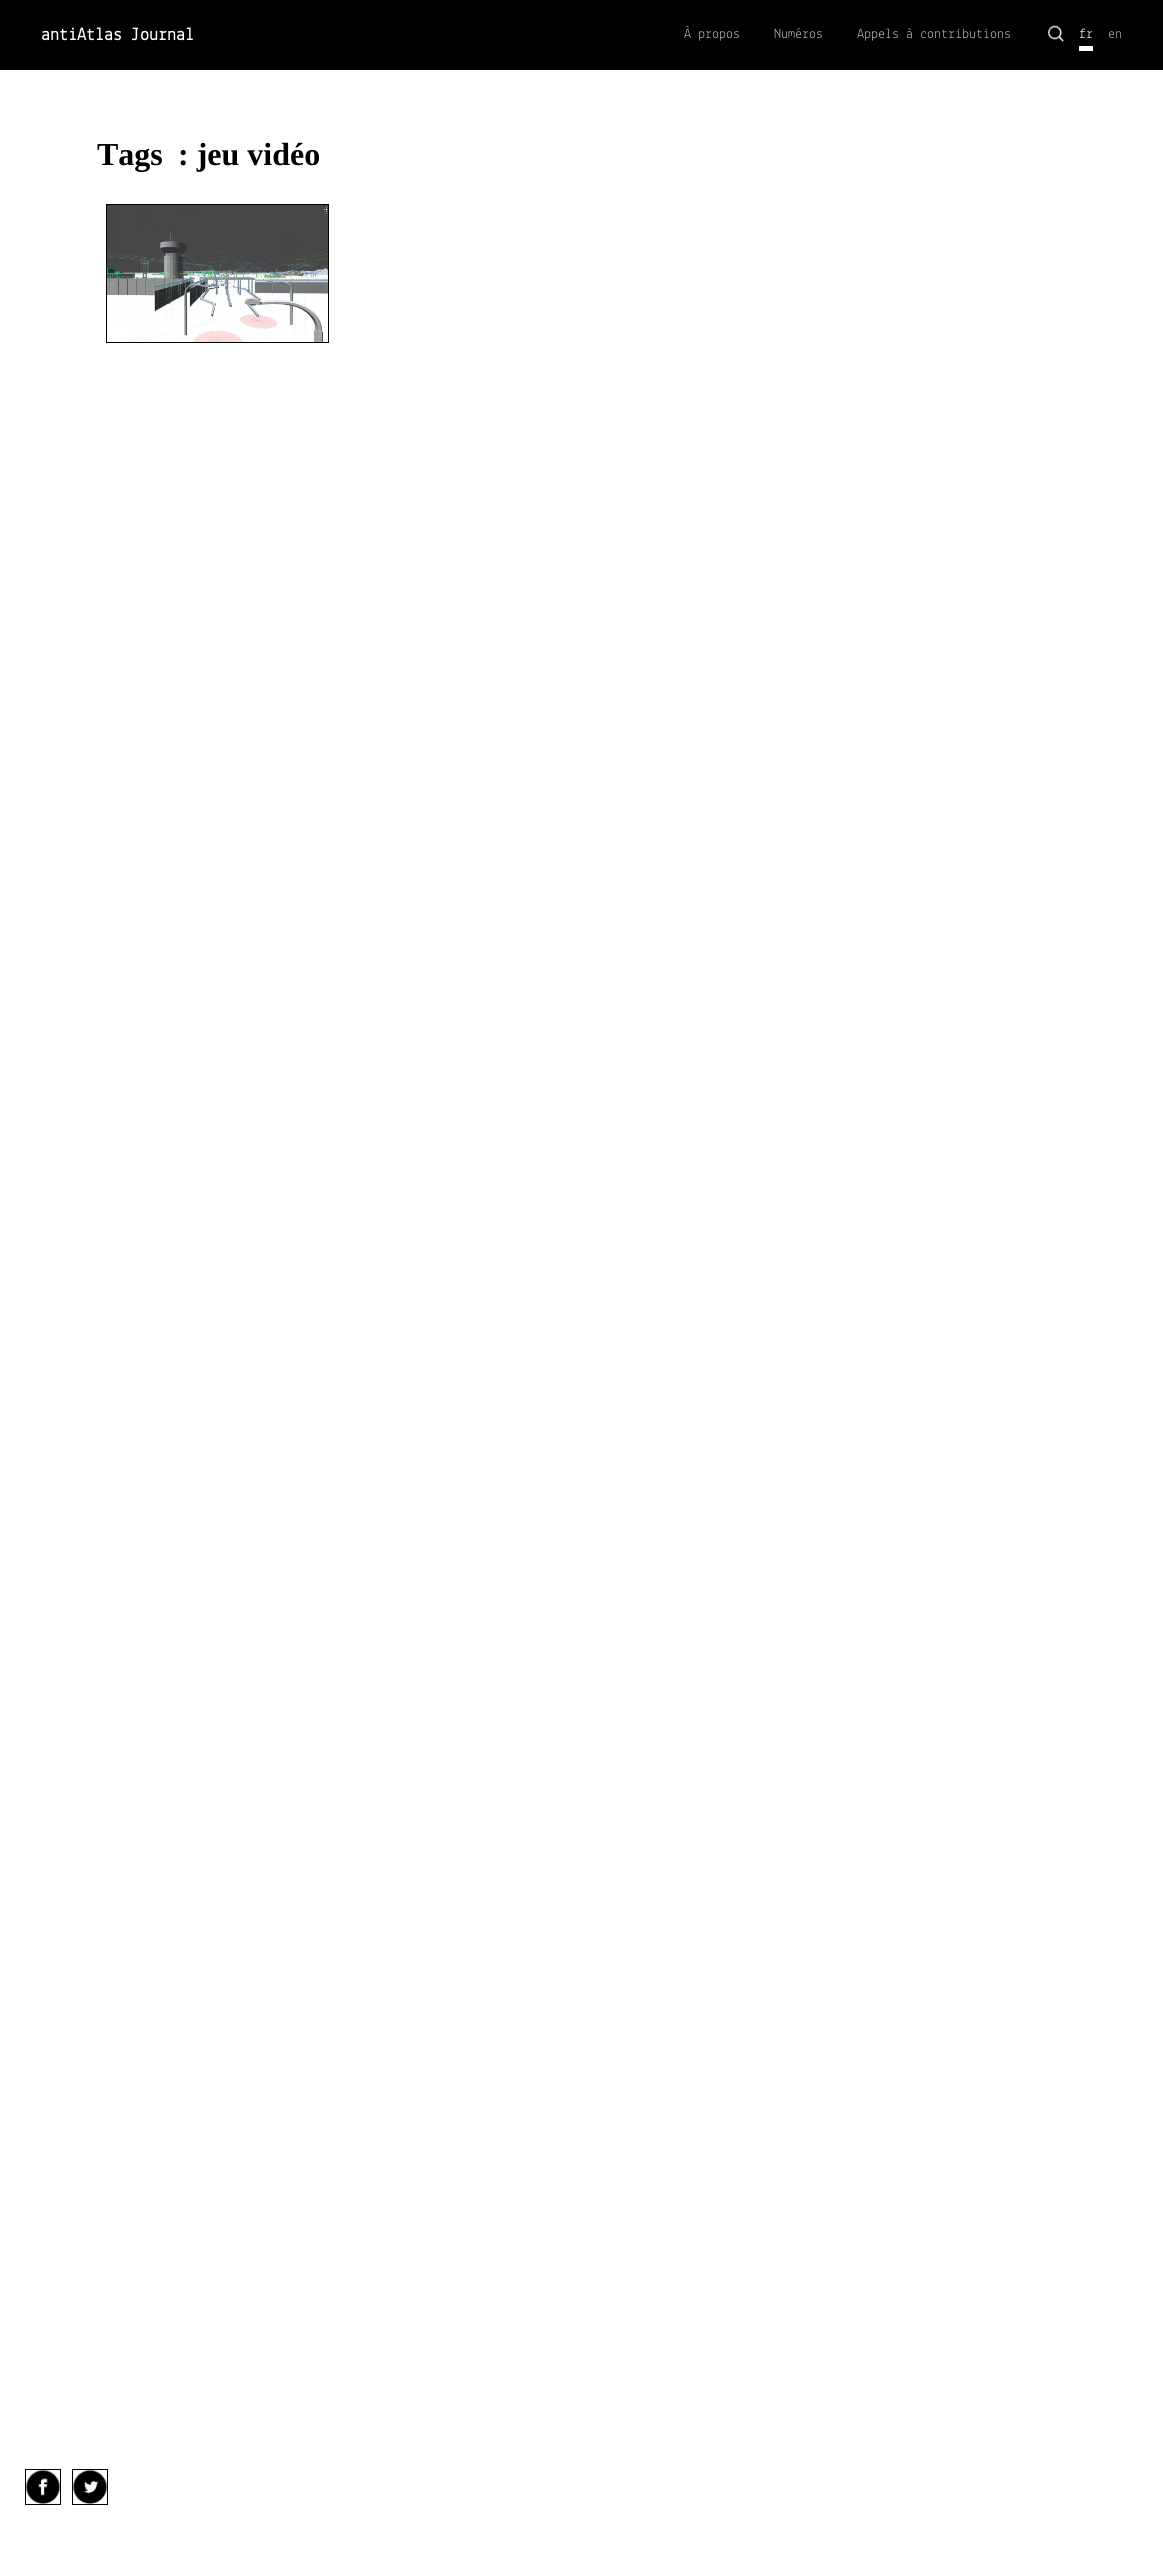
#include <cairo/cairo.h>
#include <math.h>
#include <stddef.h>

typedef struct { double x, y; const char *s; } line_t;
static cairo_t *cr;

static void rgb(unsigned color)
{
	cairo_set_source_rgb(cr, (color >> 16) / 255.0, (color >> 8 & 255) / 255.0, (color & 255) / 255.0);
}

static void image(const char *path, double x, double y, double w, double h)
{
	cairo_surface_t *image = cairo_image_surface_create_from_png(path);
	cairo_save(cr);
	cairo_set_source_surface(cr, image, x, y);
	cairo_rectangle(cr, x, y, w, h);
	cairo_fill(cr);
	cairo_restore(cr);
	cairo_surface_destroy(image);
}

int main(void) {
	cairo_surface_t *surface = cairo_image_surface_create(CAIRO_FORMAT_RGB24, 1163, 2562);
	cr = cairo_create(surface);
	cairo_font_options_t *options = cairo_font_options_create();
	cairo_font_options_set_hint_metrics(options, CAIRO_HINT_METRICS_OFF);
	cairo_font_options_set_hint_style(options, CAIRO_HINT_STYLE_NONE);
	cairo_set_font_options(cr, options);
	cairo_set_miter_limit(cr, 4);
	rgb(0xffffff);
	cairo_paint(cr);
	rgb(0x000000);
	cairo_rectangle(cr, 0, 0, 1163, 70);
	cairo_fill(cr);
	image("img/1.png", 1048, 25, 16, 17);
	rgb(0xffffff);
	cairo_rectangle(cr, 1079, 46, 14, 5);
	cairo_fill(cr);
	cairo_rectangle(cr, 106.5, 204.5, 222, 138);
	rgb(0x000000);
	cairo_set_line_width(cr, 1);
	cairo_stroke(cr);
	image("img/2.png", 107, 205, 221, 137);
	cairo_rectangle(cr, 25.5, 2469.5, 35, 35);
	cairo_stroke(cr);
	image("img/3.png", 26, 2470, 34, 34);
	cairo_rectangle(cr, 72.5, 2469.5, 35, 35);
	cairo_stroke(cr);
	image("img/4.png", 73, 2470, 34, 34);
	cairo_select_font_face(cr, "Lekton", CAIRO_FONT_SLANT_NORMAL, CAIRO_FONT_WEIGHT_BOLD);
	cairo_set_font_size(cr, 18);
	rgb(0xffffff);
	cairo_move_to(cr, 41, 40);
	cairo_show_text(cr, "antiAtlas Journal");
	cairo_select_font_face(cr, "Lekton", CAIRO_FONT_SLANT_NORMAL, CAIRO_FONT_WEIGHT_NORMAL);
	cairo_set_font_size(cr, 14);
	rgb(0xb3b3b3);
	{
		static const line_t items[] = {
			{684, 38, "À propos"},
			{774, 38, "Numéros"},
			{857, 38, "Appels à contributions"},
		};
		for (size_t i = 0; i < sizeof items / sizeof *items; i++) {
			cairo_move_to(cr, items[i].x, items[i].y);
			cairo_show_text(cr, items[i].s);
		}
	}
	rgb(0xffffff);
	cairo_move_to(cr, 1079, 38);
	cairo_show_text(cr, "fr");
	rgb(0xb3b3b3);
	cairo_move_to(cr, 1108, 38);
	cairo_show_text(cr, "en");
	cairo_select_font_face(cr, "Liberation Serif", CAIRO_FONT_SLANT_NORMAL, CAIRO_FONT_WEIGHT_BOLD);
	cairo_set_font_size(cr, 32);
	rgb(0x000000);
	cairo_move_to(cr, 97, 165);
	cairo_show_text(cr, "Tags");
	cairo_move_to(cr, 178, 165);
	cairo_show_text(cr, ": jeu vidéo");
	cairo_surface_write_to_png(surface, "page.png");
	cairo_font_options_destroy(options);
	cairo_destroy(cr);
	cairo_surface_destroy(surface);
	return 0;
}
